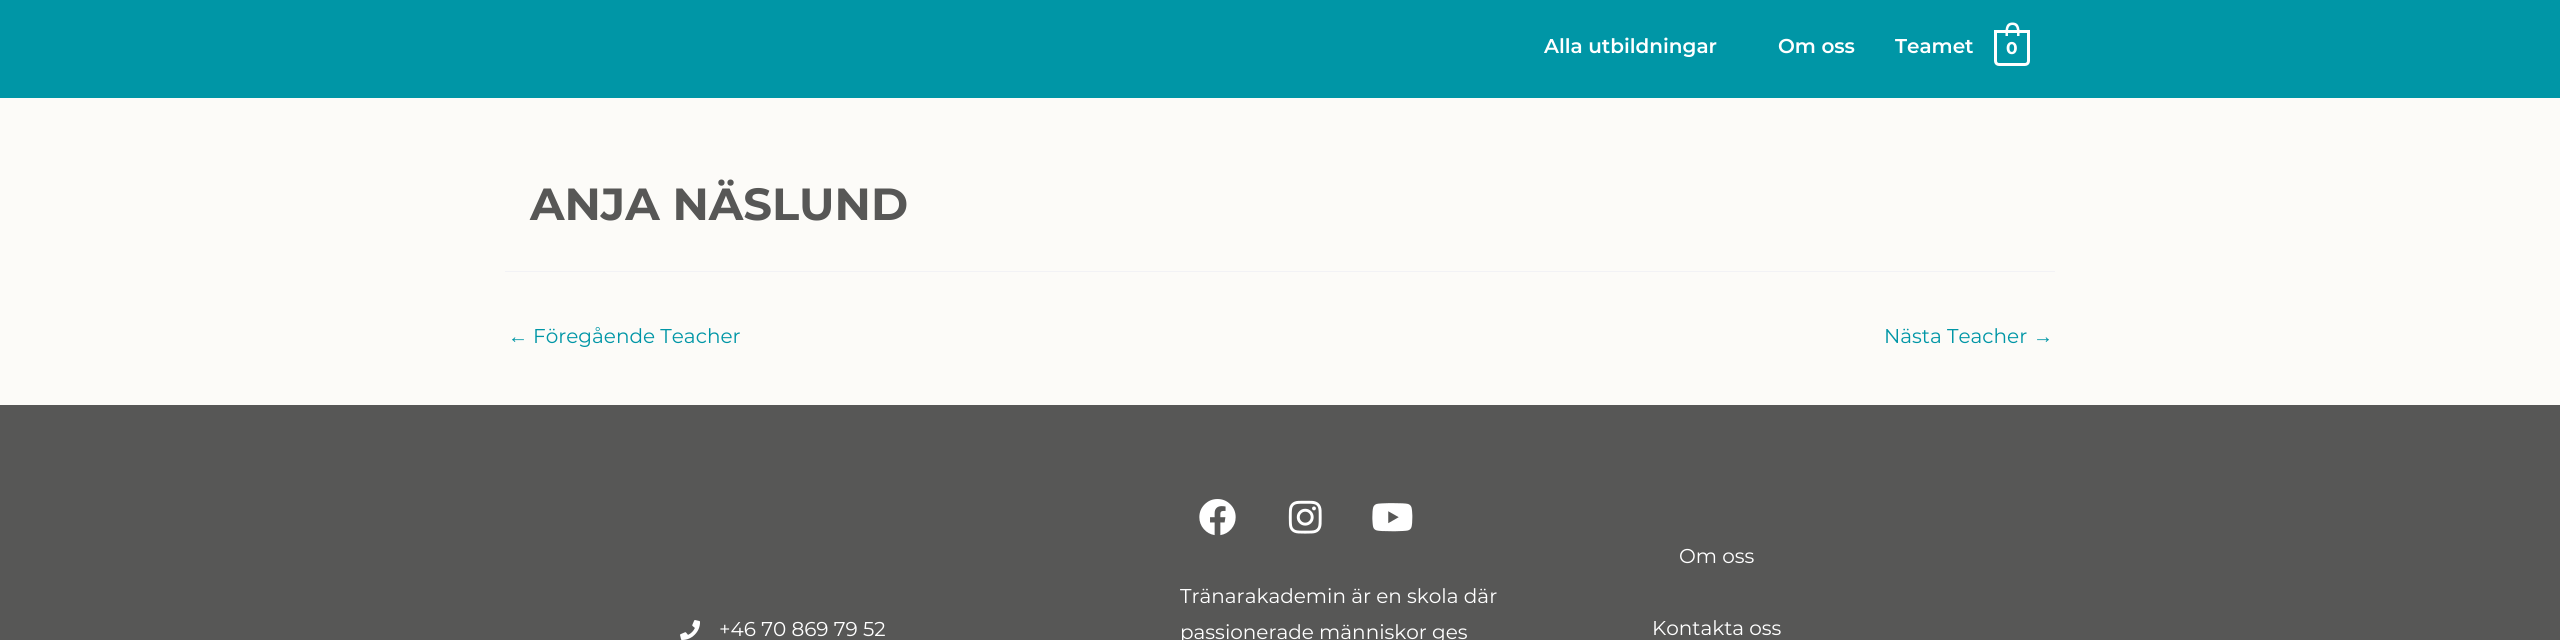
#include <cairo/cairo.h>
#include <math.h>
#include <stddef.h>

typedef struct { double x, y; const char *s; } line_t;
static cairo_t *cr;

static void rgb(unsigned color)
{
	cairo_set_source_rgb(cr, (color >> 16) / 255.0, (color >> 8 & 255) / 255.0, (color & 255) / 255.0);
}

static void image(const char *path, double x, double y, double w, double h)
{
	cairo_surface_t *image = cairo_image_surface_create_from_png(path);
	cairo_save(cr);
	cairo_set_source_surface(cr, image, x, y);
	cairo_rectangle(cr, x, y, w, h);
	cairo_fill(cr);
	cairo_restore(cr);
	cairo_surface_destroy(image);
}

int main(void) {
	cairo_surface_t *surface = cairo_image_surface_create(CAIRO_FORMAT_RGB24, 2560, 640);
	cr = cairo_create(surface);
	cairo_font_options_t *options = cairo_font_options_create();
	cairo_font_options_set_hint_metrics(options, CAIRO_HINT_METRICS_OFF);
	cairo_font_options_set_hint_style(options, CAIRO_HINT_STYLE_NONE);
	cairo_set_font_options(cr, options);
	cairo_set_miter_limit(cr, 4);
	rgb(0xfcfbf8);
	cairo_paint(cr);
	rgb(0x0096a6);
	cairo_rectangle(cr, 0, 0, 2560, 98);
	cairo_fill(cr);
	cairo_new_path(cr);
	cairo_move_to(cr, 1995.5, 31.5);
	cairo_line_to(cr, 2028.5, 31.5);
	cairo_line_to(cr, 2028.5, 61);
	cairo_curve_to(cr, 2028.5, 63, 2027, 64.5, 2025, 64.5);
	cairo_line_to(cr, 1999, 64.5);
	cairo_curve_to(cr, 1997, 64.5, 1995.5, 63, 1995.5, 61);
	cairo_close_path(cr);
	rgb(0xffffff);
	cairo_set_line_width(cr, 3);
	cairo_stroke(cr);
	cairo_set_fill_rule(cr, CAIRO_FILL_RULE_EVEN_ODD);
	cairo_new_path(cr);
	cairo_move_to(cr, 2012.5, 22.5);
	cairo_curve_to(cr, 2020.5, 22.5, 2019.5, 31, 2019.5, 36);
	cairo_line_to(cr, 2005.5, 36);
	cairo_curve_to(cr, 2005.5, 31, 2004.5, 22.5, 2012.5, 22.5);
	cairo_close_path(cr);
	cairo_move_to(cr, 2012.5, 25);
	cairo_curve_to(cr, 2018, 25, 2017, 32.5, 2017, 36);
	cairo_line_to(cr, 2008, 36);
	cairo_curve_to(cr, 2008, 32.5, 2007, 25, 2012.5, 25);
	cairo_close_path(cr);
	cairo_fill(cr);
	rgb(0xf2f2f5);
	cairo_rectangle(cr, 505, 271, 1550, 1);
	cairo_fill(cr);
	rgb(0x575756);
	cairo_rectangle(cr, 0, 405, 2560, 235);
	cairo_fill(cr);
	image("img/1.png", 680, 620, 20, 20);
	image("img/2.png", 1199, 499, 37, 37);
	image("img/3.png", 1288, 500, 34, 34);
	image("img/4.png", 1372, 503, 41, 29);
	cairo_select_font_face(cr, "Montserrat SemiBold", CAIRO_FONT_SLANT_NORMAL, CAIRO_FONT_WEIGHT_NORMAL);
	cairo_set_font_size(cr, 20);
	rgb(0xffffff);
	{
		static const line_t items[] = {
			{1544, 53, "Alla utbildningar"},
			{1778, 53, "Om oss"},
			{1895, 53, "Teamet"},
		};
		for (size_t i = 0; i < sizeof items / sizeof *items; i++) {
			cairo_move_to(cr, items[i].x, items[i].y);
			cairo_show_text(cr, items[i].s);
		}
	}
	cairo_select_font_face(cr, "Montserrat", CAIRO_FONT_SLANT_NORMAL, CAIRO_FONT_WEIGHT_BOLD);
	cairo_set_font_size(cr, 17);
	cairo_move_to(cr, 2006, 54);
	cairo_show_text(cr, "0");
	cairo_set_font_size(cr, 45);
	rgb(0x575756);
	cairo_move_to(cr, 530, 220);
	cairo_show_text(cr, "ANJA NÄSLUND");
	cairo_select_font_face(cr, "Liberation Sans", CAIRO_FONT_SLANT_NORMAL, CAIRO_FONT_WEIGHT_NORMAL);
	cairo_set_font_size(cr, 20);
	rgb(0x0096a6);
	cairo_move_to(cr, 508, 343);
	cairo_show_text(cr, "←");
	cairo_select_font_face(cr, "Montserrat", CAIRO_FONT_SLANT_NORMAL, CAIRO_FONT_WEIGHT_NORMAL);
	cairo_move_to(cr, 533, 343);
	cairo_show_text(cr, "Föregående Teacher");
	cairo_move_to(cr, 1884, 343);
	cairo_show_text(cr, "Nästa Teacher");
	cairo_select_font_face(cr, "Liberation Sans", CAIRO_FONT_SLANT_NORMAL, CAIRO_FONT_WEIGHT_NORMAL);
	cairo_move_to(cr, 2033, 343);
	cairo_show_text(cr, "→");
	cairo_select_font_face(cr, "Montserrat", CAIRO_FONT_SLANT_NORMAL, CAIRO_FONT_WEIGHT_NORMAL);
	rgb(0xffffff);
	{
		static const line_t items[] = {
			{719, 636, "+46 70 869 79 52"},
			{1180, 603, "Tränarakademin är en skola där"},
			{1180, 639, "passionerade människor ges"},
			{1679, 563, "Om oss"},
			{1652, 635, "Kontakta oss"},
		};
		for (size_t i = 0; i < sizeof items / sizeof *items; i++) {
			cairo_move_to(cr, items[i].x, items[i].y);
			cairo_show_text(cr, items[i].s);
		}
	}
	cairo_surface_write_to_png(surface, "page.png");
	cairo_font_options_destroy(options);
	cairo_destroy(cr);
	cairo_surface_destroy(surface);
	return 0;
}
